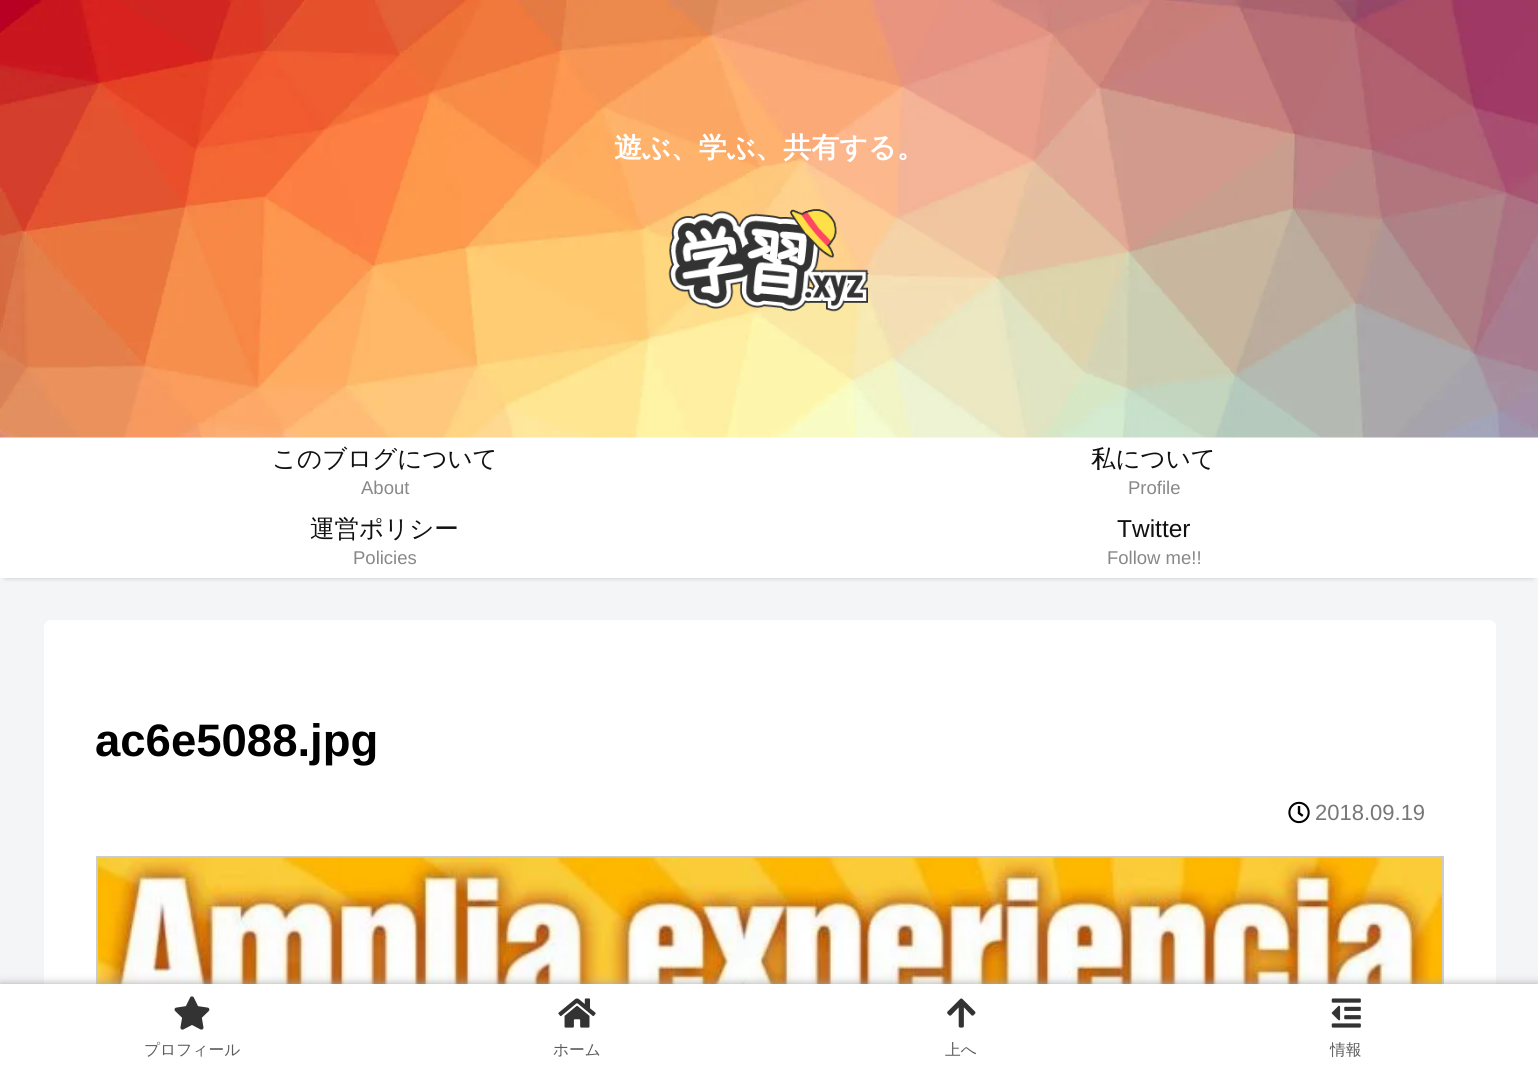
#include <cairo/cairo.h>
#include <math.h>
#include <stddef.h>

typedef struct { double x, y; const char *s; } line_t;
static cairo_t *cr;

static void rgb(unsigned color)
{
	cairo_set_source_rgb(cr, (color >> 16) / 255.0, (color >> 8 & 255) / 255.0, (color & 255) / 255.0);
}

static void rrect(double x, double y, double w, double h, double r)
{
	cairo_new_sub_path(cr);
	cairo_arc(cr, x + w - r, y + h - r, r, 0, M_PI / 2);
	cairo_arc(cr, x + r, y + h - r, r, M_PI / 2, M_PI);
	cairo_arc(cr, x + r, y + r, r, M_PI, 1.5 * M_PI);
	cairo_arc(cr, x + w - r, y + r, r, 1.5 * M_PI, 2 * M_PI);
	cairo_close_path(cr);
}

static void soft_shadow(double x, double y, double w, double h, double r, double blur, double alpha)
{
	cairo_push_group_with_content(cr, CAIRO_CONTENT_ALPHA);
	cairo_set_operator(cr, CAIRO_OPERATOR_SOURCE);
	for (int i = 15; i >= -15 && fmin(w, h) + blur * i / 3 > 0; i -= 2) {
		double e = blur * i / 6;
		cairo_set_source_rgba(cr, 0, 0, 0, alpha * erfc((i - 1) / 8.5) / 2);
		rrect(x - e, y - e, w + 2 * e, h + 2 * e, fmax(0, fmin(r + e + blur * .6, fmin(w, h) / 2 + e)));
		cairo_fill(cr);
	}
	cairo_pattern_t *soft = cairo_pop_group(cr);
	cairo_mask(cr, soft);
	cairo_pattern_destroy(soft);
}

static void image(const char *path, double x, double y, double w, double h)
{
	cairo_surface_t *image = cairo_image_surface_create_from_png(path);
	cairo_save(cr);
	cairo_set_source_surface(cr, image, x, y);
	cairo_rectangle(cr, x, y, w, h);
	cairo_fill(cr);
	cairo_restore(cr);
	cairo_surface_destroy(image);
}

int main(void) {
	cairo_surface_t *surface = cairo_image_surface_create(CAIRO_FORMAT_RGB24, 1538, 1070);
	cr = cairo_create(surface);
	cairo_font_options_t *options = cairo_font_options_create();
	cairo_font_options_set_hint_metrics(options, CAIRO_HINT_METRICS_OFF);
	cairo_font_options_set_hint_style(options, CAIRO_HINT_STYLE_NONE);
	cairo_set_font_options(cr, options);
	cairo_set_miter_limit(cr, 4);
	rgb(0xf4f5f7);
	cairo_paint(cr);
	rgb(0xffffff);
	cairo_rectangle(cr, 0, 437, 1538, 1);
	cairo_fill(cr);
	image("img/1.png", 0, 0, 1538, 438);
	image("img/2.png", 668, 209, 201, 103);
	rgb(0x000000);
	soft_shadow(5, 448, 1528, 130, 0, 2.5, 0.2);
	rgb(0xffffff);
	cairo_rectangle(cr, 0, 438, 1538, 140);
	cairo_fill(cr);
	rrect(44, 620, 1452, 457, 7);
	cairo_fill(cr);
	image("img/3.png", 1288, 801, 22, 23);
	cairo_rectangle(cr, 97, 857, 1346, 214);
	rgb(0xcccccc);
	cairo_stroke(cr);
	image("img/4.png", 98, 857, 1344, 127);
	rgb(0xa9a9a9);
	soft_shadow(0, 984, 1538, 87, 0, 4.5, 1);
	rgb(0xffffff);
	cairo_rectangle(cr, 0, 984, 1538, 86);
	cairo_fill(cr);
	image("img/5.png", 174, 996, 36, 34);
	image("img/6.png", 558, 998, 38, 30);
	image("img/7.png", 947, 998, 29, 30);
	image("img/8.png", 1331, 998, 30, 30);
	cairo_select_font_face(cr, "WenQuanYi Zen Hei", CAIRO_FONT_SLANT_NORMAL, CAIRO_FONT_WEIGHT_BOLD);
	cairo_set_font_size(cr, 28);
	cairo_move_to(cr, 614, 157);
	cairo_show_text(cr, "遊ぶ、学ぶ、共有する。");
	cairo_select_font_face(cr, "WenQuanYi Zen Hei Medium", CAIRO_FONT_SLANT_NORMAL, CAIRO_FONT_WEIGHT_NORMAL);
	cairo_set_font_size(cr, 24.5);
	rgb(0x111111);
	cairo_move_to(cr, 272, 467);
	cairo_show_text(cr, "このブログについて");
	cairo_select_font_face(cr, "Liberation Sans", CAIRO_FONT_SLANT_NORMAL, CAIRO_FONT_WEIGHT_NORMAL);
	cairo_set_font_size(cr, 18.5);
	rgb(0x888888);
	cairo_move_to(cr, 361, 494);
	cairo_show_text(cr, "About");
	cairo_select_font_face(cr, "WenQuanYi Zen Hei Medium", CAIRO_FONT_SLANT_NORMAL, CAIRO_FONT_WEIGHT_NORMAL);
	cairo_set_font_size(cr, 24.5);
	rgb(0x111111);
	cairo_move_to(cr, 1091, 467);
	cairo_show_text(cr, "私について");
	cairo_select_font_face(cr, "Liberation Sans", CAIRO_FONT_SLANT_NORMAL, CAIRO_FONT_WEIGHT_NORMAL);
	cairo_set_font_size(cr, 18.5);
	rgb(0x888888);
	cairo_move_to(cr, 1128, 494);
	cairo_show_text(cr, "Profile");
	cairo_select_font_face(cr, "WenQuanYi Zen Hei Medium", CAIRO_FONT_SLANT_NORMAL, CAIRO_FONT_WEIGHT_NORMAL);
	cairo_set_font_size(cr, 24.5);
	rgb(0x111111);
	cairo_move_to(cr, 310, 537);
	cairo_show_text(cr, "運営ポリシー");
	cairo_select_font_face(cr, "Liberation Sans", CAIRO_FONT_SLANT_NORMAL, CAIRO_FONT_WEIGHT_NORMAL);
	cairo_set_font_size(cr, 18.5);
	rgb(0x888888);
	cairo_move_to(cr, 353, 564);
	cairo_show_text(cr, "Policies");
	cairo_set_font_size(cr, 24.5);
	rgb(0x111111);
	cairo_move_to(cr, 1117, 537);
	cairo_show_text(cr, "Twitter");
	cairo_set_font_size(cr, 18.5);
	rgb(0x888888);
	cairo_move_to(cr, 1107, 564);
	cairo_show_text(cr, "Follow me!!");
	cairo_select_font_face(cr, "Liberation Sans", CAIRO_FONT_SLANT_NORMAL, CAIRO_FONT_WEIGHT_BOLD);
	cairo_set_font_size(cr, 45.5);
	rgb(0x000000);
	cairo_move_to(cr, 95, 756);
	cairo_show_text(cr, "ac6e5088.jpg");
	cairo_select_font_face(cr, "Liberation Sans", CAIRO_FONT_SLANT_NORMAL, CAIRO_FONT_WEIGHT_NORMAL);
	cairo_set_font_size(cr, 22);
	rgb(0x777777);
	cairo_move_to(cr, 1315, 820);
	cairo_show_text(cr, "2018.09.19");
	cairo_select_font_face(cr, "WenQuanYi Zen Hei Medium", CAIRO_FONT_SLANT_NORMAL, CAIRO_FONT_WEIGHT_NORMAL);
	cairo_set_font_size(cr, 15.75);
	rgb(0x5c5c5c);
	{
		static const line_t items[] = {
			{144, 1055, "プロフィール"},
			{553, 1055, "ホーム"},
			{945, 1055, "上へ"},
			{1330, 1055, "情報"},
		};
		for (size_t i = 0; i < sizeof items / sizeof *items; i++) {
			cairo_move_to(cr, items[i].x, items[i].y);
			cairo_show_text(cr, items[i].s);
		}
	}
	cairo_surface_write_to_png(surface, "page.png");
	cairo_font_options_destroy(options);
	cairo_destroy(cr);
	cairo_surface_destroy(surface);
	return 0;
}
